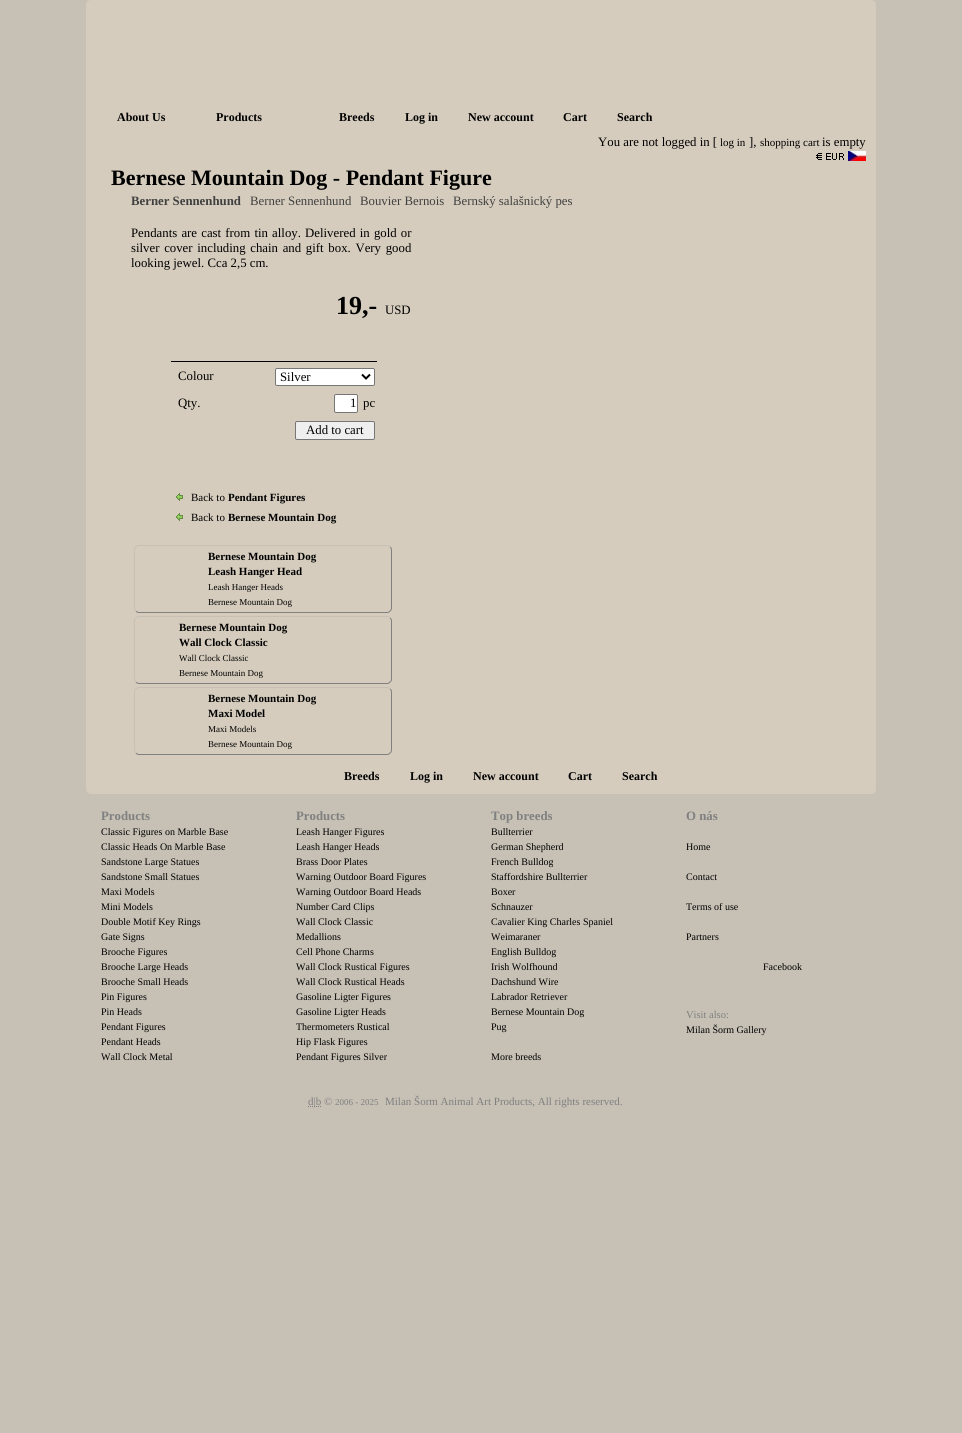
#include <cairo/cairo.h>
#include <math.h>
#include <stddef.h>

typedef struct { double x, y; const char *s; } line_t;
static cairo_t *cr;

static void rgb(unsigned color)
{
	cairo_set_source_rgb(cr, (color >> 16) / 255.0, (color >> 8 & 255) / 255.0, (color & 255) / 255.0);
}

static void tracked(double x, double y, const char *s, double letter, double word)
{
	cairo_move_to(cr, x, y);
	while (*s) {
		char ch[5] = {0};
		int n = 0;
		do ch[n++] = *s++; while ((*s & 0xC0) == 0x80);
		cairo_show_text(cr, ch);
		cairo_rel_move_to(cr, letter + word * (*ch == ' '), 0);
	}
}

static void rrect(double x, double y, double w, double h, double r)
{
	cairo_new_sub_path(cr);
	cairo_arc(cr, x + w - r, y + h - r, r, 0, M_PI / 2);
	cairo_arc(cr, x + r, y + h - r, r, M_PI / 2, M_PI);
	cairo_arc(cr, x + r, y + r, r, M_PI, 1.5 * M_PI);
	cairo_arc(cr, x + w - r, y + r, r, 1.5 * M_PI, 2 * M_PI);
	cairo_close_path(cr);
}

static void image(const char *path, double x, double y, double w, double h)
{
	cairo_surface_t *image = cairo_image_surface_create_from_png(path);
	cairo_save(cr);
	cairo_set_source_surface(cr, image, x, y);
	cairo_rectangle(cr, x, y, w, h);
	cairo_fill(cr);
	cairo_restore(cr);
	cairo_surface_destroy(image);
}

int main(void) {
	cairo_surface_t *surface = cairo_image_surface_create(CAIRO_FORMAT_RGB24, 962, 1433);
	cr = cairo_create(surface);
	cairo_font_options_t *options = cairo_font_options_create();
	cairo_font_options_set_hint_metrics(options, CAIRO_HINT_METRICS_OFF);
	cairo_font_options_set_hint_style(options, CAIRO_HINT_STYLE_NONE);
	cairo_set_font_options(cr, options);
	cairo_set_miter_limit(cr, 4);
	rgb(0xc6c0b5);
	cairo_paint(cr);
	rgb(0xd5ccbd);
	rrect(86, 0, 790, 794, 5);
	cairo_fill(cr);
	image("img/1.png", 816, 153, 28, 7);
	image("img/2.png", 848, 151, 18, 10);
	rgb(0x000000);
	cairo_rectangle(cr, 171, 361, 206, 1);
	cairo_fill(cr);
	rgb(0xffffff);
	rrect(275.5, 368.5, 99, 17, 1.5);
	cairo_fill_preserve(cr);
	rgb(0x767676);
	cairo_set_line_width(cr, 1);
	cairo_stroke(cr);
	cairo_new_path(cr);
	cairo_move_to(cr, 362, 374.5);
	cairo_line_to(cr, 366, 378.5);
	cairo_line_to(cr, 370, 374.5);
	rgb(0x000000);
	cairo_set_line_width(cr, 2);
	cairo_stroke(cr);
	rgb(0xffffff);
	rrect(334.5, 394.5, 23, 18, 1.5);
	cairo_fill_preserve(cr);
	rgb(0x767676);
	cairo_set_line_width(cr, 1);
	cairo_stroke(cr);
	rgb(0xefefef);
	rrect(295.5, 421.5, 79, 18, 1.5);
	cairo_fill_preserve(cr);
	rgb(0x767676);
	cairo_stroke(cr);
	image("img/3.png", 176, 493, 7, 8);
	image("img/3.png", 176, 513, 7, 8);
	cairo_new_path(cr);
	cairo_move_to(cr, 390, 547);
	cairo_curve_to(cr, 391, 547.5, 391.5, 549, 391.5, 550);
	cairo_line_to(cr, 391.5, 608);
	cairo_curve_to(cr, 391.5, 609, 391, 610.5, 390, 611);
	cairo_curve_to(cr, 389.5, 612, 388, 612.5, 387, 612.5);
	cairo_line_to(cr, 139, 612.5);
	cairo_curve_to(cr, 138, 612.5, 136.5, 612, 136, 611);
	rgb(0x808080);
	cairo_stroke(cr);
	cairo_new_path(cr);
	cairo_move_to(cr, 136, 611);
	cairo_curve_to(cr, 135, 610.5, 134.5, 609, 134.5, 608);
	cairo_line_to(cr, 134.5, 550);
	cairo_curve_to(cr, 134.5, 549, 135, 547.5, 136, 547);
	cairo_curve_to(cr, 136.5, 546, 138, 545.5, 139, 545.5);
	cairo_line_to(cr, 387, 545.5);
	cairo_curve_to(cr, 388, 545.5, 389.5, 546, 390, 547);
	rgb(0xc6c0b5);
	cairo_stroke(cr);
	cairo_new_path(cr);
	cairo_move_to(cr, 390, 618);
	cairo_curve_to(cr, 391, 618.5, 391.5, 620, 391.5, 621);
	cairo_line_to(cr, 391.5, 679);
	cairo_curve_to(cr, 391.5, 680, 391, 681.5, 390, 682);
	cairo_curve_to(cr, 389.5, 683, 388, 683.5, 387, 683.5);
	cairo_line_to(cr, 139, 683.5);
	cairo_curve_to(cr, 138, 683.5, 136.5, 683, 136, 682);
	rgb(0x808080);
	cairo_stroke(cr);
	cairo_new_path(cr);
	cairo_move_to(cr, 136, 682);
	cairo_curve_to(cr, 135, 681.5, 134.5, 680, 134.5, 679);
	cairo_line_to(cr, 134.5, 621);
	cairo_curve_to(cr, 134.5, 620, 135, 618.5, 136, 618);
	cairo_curve_to(cr, 136.5, 617, 138, 616.5, 139, 616.5);
	cairo_line_to(cr, 387, 616.5);
	cairo_curve_to(cr, 388, 616.5, 389.5, 617, 390, 618);
	rgb(0xc6c0b5);
	cairo_stroke(cr);
	cairo_new_path(cr);
	cairo_move_to(cr, 390, 689);
	cairo_curve_to(cr, 391, 689.5, 391.5, 691, 391.5, 692);
	cairo_line_to(cr, 391.5, 750);
	cairo_curve_to(cr, 391.5, 751, 391, 752.5, 390, 753);
	cairo_curve_to(cr, 389.5, 754, 388, 754.5, 387, 754.5);
	cairo_line_to(cr, 139, 754.5);
	cairo_curve_to(cr, 138, 754.5, 136.5, 754, 136, 753);
	rgb(0x808080);
	cairo_stroke(cr);
	cairo_new_path(cr);
	cairo_move_to(cr, 136, 753);
	cairo_curve_to(cr, 135, 752.5, 134.5, 751, 134.5, 750);
	cairo_line_to(cr, 134.5, 692);
	cairo_curve_to(cr, 134.5, 691, 135, 689.5, 136, 689);
	cairo_curve_to(cr, 136.5, 688, 138, 687.5, 139, 687.5);
	cairo_line_to(cr, 387, 687.5);
	cairo_curve_to(cr, 388, 687.5, 389.5, 688, 390, 689);
	rgb(0xc6c0b5);
	cairo_stroke(cr);
	cairo_new_path(cr);
	cairo_move_to(cr, 308, 1106.5);
	cairo_line_to(cr, 321.5, 1106.5);
	rgb(0x808080);
	cairo_set_dash(cr, (double[]){1, 1}, 2, 0);
	cairo_stroke(cr);
	cairo_select_font_face(cr, "Liberation Serif", CAIRO_FONT_SLANT_NORMAL, CAIRO_FONT_WEIGHT_BOLD);
	cairo_set_font_size(cr, 12);
	rgb(0x000000);
	{
		static const line_t items[] = {
			{339, 121, "Breeds"},
			{405, 121, "Log in"},
			{468, 121, "New account"},
			{563, 121, "Cart"},
			{617, 121, "Search"},
		};
		for (size_t i = 0; i < sizeof items / sizeof *items; i++) {
			cairo_move_to(cr, items[i].x, items[i].y);
			cairo_show_text(cr, items[i].s);
		}
	}
	cairo_select_font_face(cr, "Liberation Serif", CAIRO_FONT_SLANT_NORMAL, CAIRO_FONT_WEIGHT_NORMAL);
	cairo_set_font_size(cr, 12.8);
	cairo_move_to(cr, 598, 146);
	cairo_show_text(cr, "You are not logged in [");
	cairo_set_font_size(cr, 11);
	cairo_move_to(cr, 720, 146);
	cairo_show_text(cr, "log in");
	cairo_set_font_size(cr, 12.8);
	cairo_move_to(cr, 749, 146);
	cairo_show_text(cr, "],");
	cairo_set_font_size(cr, 11);
	cairo_move_to(cr, 760, 146);
	cairo_show_text(cr, "shopping cart");
	cairo_set_font_size(cr, 12.8);
	cairo_move_to(cr, 822, 146);
	cairo_show_text(cr, "is empty");
	cairo_select_font_face(cr, "Liberation Serif", CAIRO_FONT_SLANT_NORMAL, CAIRO_FONT_WEIGHT_BOLD);
	cairo_set_font_size(cr, 22);
	cairo_move_to(cr, 111, 185);
	cairo_show_text(cr, "Bernese Mountain Dog - Pendant Figure");
	cairo_set_font_size(cr, 12.8);
	rgb(0x404040);
	cairo_move_to(cr, 131, 205);
	cairo_show_text(cr, "Berner Sennenhund");
	cairo_select_font_face(cr, "Liberation Serif", CAIRO_FONT_SLANT_NORMAL, CAIRO_FONT_WEIGHT_NORMAL);
	{
		static const line_t items[] = {
			{250, 205, "Berner Sennenhund"},
			{360, 205, "Bouvier Bernois"},
			{453, 205, "Bernský salašnický pes"},
		};
		for (size_t i = 0; i < sizeof items / sizeof *items; i++) {
			cairo_move_to(cr, items[i].x, items[i].y);
			cairo_show_text(cr, items[i].s);
		}
	}
	rgb(0x000000);
	tracked(131, 237, "Pendants are cast from tin alloy. Delivered in gold or", 0, 1);
	tracked(131, 252, "silver cover including chain and gift box. Very good", 0, 1.5);
	cairo_move_to(cr, 131, 267);
	cairo_show_text(cr, "looking jewel. Cca 2,5 cm.");
	cairo_select_font_face(cr, "Liberation Serif", CAIRO_FONT_SLANT_NORMAL, CAIRO_FONT_WEIGHT_BOLD);
	cairo_set_font_size(cr, 26);
	cairo_move_to(cr, 336, 314);
	cairo_show_text(cr, "19,-");
	cairo_select_font_face(cr, "Liberation Serif", CAIRO_FONT_SLANT_NORMAL, CAIRO_FONT_WEIGHT_NORMAL);
	cairo_set_font_size(cr, 12.8);
	{
		static const line_t items[] = {
			{385, 314, "USD"},
			{178, 380, "Colour"},
			{280, 381, "Silver"},
			{178, 407, "Qty."},
			{350, 407, "1"},
			{363, 407, "pc"},
			{306, 434, "Add to cart"},
		};
		for (size_t i = 0; i < sizeof items / sizeof *items; i++) {
			cairo_move_to(cr, items[i].x, items[i].y);
			cairo_show_text(cr, items[i].s);
		}
	}
	cairo_set_font_size(cr, 11);
	cairo_move_to(cr, 191, 501);
	cairo_show_text(cr, "Back to");
	cairo_select_font_face(cr, "Liberation Serif", CAIRO_FONT_SLANT_NORMAL, CAIRO_FONT_WEIGHT_BOLD);
	cairo_move_to(cr, 228, 501);
	cairo_show_text(cr, "Pendant Figures");
	cairo_select_font_face(cr, "Liberation Serif", CAIRO_FONT_SLANT_NORMAL, CAIRO_FONT_WEIGHT_NORMAL);
	cairo_move_to(cr, 191, 521);
	cairo_show_text(cr, "Back to");
	cairo_select_font_face(cr, "Liberation Serif", CAIRO_FONT_SLANT_NORMAL, CAIRO_FONT_WEIGHT_BOLD);
	{
		static const line_t items[] = {
			{228, 521, "Bernese Mountain Dog"},
			{208, 560, "Bernese Mountain Dog"},
			{208, 575, "Leash Hanger Head"},
		};
		for (size_t i = 0; i < sizeof items / sizeof *items; i++) {
			cairo_move_to(cr, items[i].x, items[i].y);
			cairo_show_text(cr, items[i].s);
		}
	}
	cairo_select_font_face(cr, "Liberation Serif", CAIRO_FONT_SLANT_NORMAL, CAIRO_FONT_WEIGHT_NORMAL);
	cairo_set_font_size(cr, 9);
	cairo_move_to(cr, 208, 590);
	cairo_show_text(cr, "Leash Hanger Heads");
	cairo_move_to(cr, 208, 605);
	cairo_show_text(cr, "Bernese Mountain Dog");
	cairo_select_font_face(cr, "Liberation Serif", CAIRO_FONT_SLANT_NORMAL, CAIRO_FONT_WEIGHT_BOLD);
	cairo_set_font_size(cr, 11);
	cairo_move_to(cr, 179, 631);
	cairo_show_text(cr, "Bernese Mountain Dog");
	cairo_move_to(cr, 179, 646);
	cairo_show_text(cr, "Wall Clock Classic");
	cairo_select_font_face(cr, "Liberation Serif", CAIRO_FONT_SLANT_NORMAL, CAIRO_FONT_WEIGHT_NORMAL);
	cairo_set_font_size(cr, 9);
	cairo_move_to(cr, 179, 661);
	cairo_show_text(cr, "Wall Clock Classic");
	cairo_move_to(cr, 179, 676);
	cairo_show_text(cr, "Bernese Mountain Dog");
	cairo_select_font_face(cr, "Liberation Serif", CAIRO_FONT_SLANT_NORMAL, CAIRO_FONT_WEIGHT_BOLD);
	cairo_set_font_size(cr, 11);
	cairo_move_to(cr, 208, 702);
	cairo_show_text(cr, "Bernese Mountain Dog");
	cairo_move_to(cr, 208, 717);
	cairo_show_text(cr, "Maxi Model");
	cairo_select_font_face(cr, "Liberation Serif", CAIRO_FONT_SLANT_NORMAL, CAIRO_FONT_WEIGHT_NORMAL);
	cairo_set_font_size(cr, 9);
	cairo_move_to(cr, 208, 732);
	cairo_show_text(cr, "Maxi Models");
	cairo_move_to(cr, 208, 747);
	cairo_show_text(cr, "Bernese Mountain Dog");
	cairo_select_font_face(cr, "Liberation Serif", CAIRO_FONT_SLANT_NORMAL, CAIRO_FONT_WEIGHT_BOLD);
	cairo_set_font_size(cr, 12);
	{
		static const line_t items[] = {
			{344, 780, "Breeds"},
			{410, 780, "Log in"},
			{473, 780, "New account"},
			{568, 780, "Cart"},
			{622, 780, "Search"},
			{117, 121, "About Us"},
			{216, 121, "Products"},
		};
		for (size_t i = 0; i < sizeof items / sizeof *items; i++) {
			cairo_move_to(cr, items[i].x, items[i].y);
			cairo_show_text(cr, items[i].s);
		}
	}
	cairo_set_font_size(cr, 12.8);
	rgb(0x808080);
	cairo_move_to(cr, 101, 820);
	cairo_show_text(cr, "Products");
	cairo_select_font_face(cr, "Liberation Serif", CAIRO_FONT_SLANT_NORMAL, CAIRO_FONT_WEIGHT_NORMAL);
	cairo_set_font_size(cr, 10);
	rgb(0x000000);
	{
		static const line_t items[] = {
			{101, 835, "Classic Figures on Marble Base"},
			{101, 850, "Classic Heads On Marble Base"},
			{101, 865, "Sandstone Large Statues"},
			{101, 880, "Sandstone Small Statues"},
			{101, 895, "Maxi Models"},
			{101, 910, "Mini Models"},
			{101, 925, "Double Motif Key Rings"},
			{101, 940, "Gate Signs"},
			{101, 955, "Brooche Figures"},
			{101, 970, "Brooche Large Heads"},
			{101, 985, "Brooche Small Heads"},
			{101, 1000, "Pin Figures"},
			{101, 1015, "Pin Heads"},
			{101, 1030, "Pendant Figures"},
			{101, 1045, "Pendant Heads"},
			{101, 1060, "Wall Clock Metal"},
		};
		for (size_t i = 0; i < sizeof items / sizeof *items; i++) {
			cairo_move_to(cr, items[i].x, items[i].y);
			cairo_show_text(cr, items[i].s);
		}
	}
	cairo_select_font_face(cr, "Liberation Serif", CAIRO_FONT_SLANT_NORMAL, CAIRO_FONT_WEIGHT_BOLD);
	cairo_set_font_size(cr, 12.8);
	rgb(0x808080);
	cairo_move_to(cr, 296, 820);
	cairo_show_text(cr, "Products");
	cairo_select_font_face(cr, "Liberation Serif", CAIRO_FONT_SLANT_NORMAL, CAIRO_FONT_WEIGHT_NORMAL);
	cairo_set_font_size(cr, 10);
	rgb(0x000000);
	{
		static const line_t items[] = {
			{296, 835, "Leash Hanger Figures"},
			{296, 850, "Leash Hanger Heads"},
			{296, 865, "Brass Door Plates"},
			{296, 880, "Warning Outdoor Board Figures"},
			{296, 895, "Warning Outdoor Board Heads"},
			{296, 910, "Number Card Clips"},
			{296, 925, "Wall Clock Classic"},
			{296, 940, "Medallions"},
			{296, 955, "Cell Phone Charms"},
			{296, 970, "Wall Clock Rustical Figures"},
			{296, 985, "Wall Clock Rustical Heads"},
			{296, 1000, "Gasoline Ligter Figures"},
			{296, 1015, "Gasoline Ligter Heads"},
			{296, 1030, "Thermometers Rustical"},
			{296, 1045, "Hip Flask Figures"},
			{296, 1060, "Pendant Figures Silver"},
		};
		for (size_t i = 0; i < sizeof items / sizeof *items; i++) {
			cairo_move_to(cr, items[i].x, items[i].y);
			cairo_show_text(cr, items[i].s);
		}
	}
	cairo_select_font_face(cr, "Liberation Serif", CAIRO_FONT_SLANT_NORMAL, CAIRO_FONT_WEIGHT_BOLD);
	cairo_set_font_size(cr, 12.8);
	rgb(0x808080);
	cairo_move_to(cr, 491, 820);
	cairo_show_text(cr, "Top breeds");
	cairo_select_font_face(cr, "Liberation Serif", CAIRO_FONT_SLANT_NORMAL, CAIRO_FONT_WEIGHT_NORMAL);
	cairo_set_font_size(cr, 10);
	rgb(0x000000);
	{
		static const line_t items[] = {
			{491, 835, "Bullterrier"},
			{491, 850, "German Shepherd"},
			{491, 865, "French Bulldog"},
			{491, 880, "Staffordshire Bullterrier"},
			{491, 895, "Boxer"},
			{491, 910, "Schnauzer"},
			{491, 925, "Cavalier King Charles Spaniel"},
			{491, 940, "Weimaraner"},
			{491, 955, "English Bulldog"},
			{491, 970, "Irish Wolfhound"},
			{491, 985, "Dachshund Wire"},
			{491, 1000, "Labrador Retriever"},
			{491, 1015, "Bernese Mountain Dog"},
			{491, 1030, "Pug"},
			{491, 1060, "More breeds"},
		};
		for (size_t i = 0; i < sizeof items / sizeof *items; i++) {
			cairo_move_to(cr, items[i].x, items[i].y);
			cairo_show_text(cr, items[i].s);
		}
	}
	cairo_select_font_face(cr, "Liberation Serif", CAIRO_FONT_SLANT_NORMAL, CAIRO_FONT_WEIGHT_BOLD);
	cairo_set_font_size(cr, 12.8);
	rgb(0x808080);
	cairo_move_to(cr, 686, 820);
	cairo_show_text(cr, "O nás");
	cairo_select_font_face(cr, "Liberation Serif", CAIRO_FONT_SLANT_NORMAL, CAIRO_FONT_WEIGHT_NORMAL);
	cairo_set_font_size(cr, 10);
	rgb(0x000000);
	{
		static const line_t items[] = {
			{686, 850, "Home"},
			{686, 880, "Contact"},
			{686, 910, "Terms of use"},
			{686, 940, "Partners"},
			{763, 970, "Facebook"},
		};
		for (size_t i = 0; i < sizeof items / sizeof *items; i++) {
			cairo_move_to(cr, items[i].x, items[i].y);
			cairo_show_text(cr, items[i].s);
		}
	}
	cairo_set_font_size(cr, 10.5);
	rgb(0x808080);
	cairo_move_to(cr, 686, 1018);
	cairo_show_text(cr, "Visit also:");
	cairo_set_font_size(cr, 10);
	rgb(0x000000);
	cairo_move_to(cr, 686, 1033);
	cairo_show_text(cr, "Milan Šorm Gallery");
	cairo_set_font_size(cr, 11);
	rgb(0x808080);
	cairo_move_to(cr, 308, 1105);
	cairo_show_text(cr, "d|b ©");
	cairo_set_font_size(cr, 9);
	cairo_move_to(cr, 335, 1105);
	cairo_show_text(cr, "2006 - 2025");
	cairo_set_font_size(cr, 11);
	cairo_move_to(cr, 385, 1105);
	cairo_show_text(cr, "Milan Šorm Animal Art Products, All rights reserved.");
	cairo_surface_write_to_png(surface, "page.png");
	cairo_font_options_destroy(options);
	cairo_destroy(cr);
	cairo_surface_destroy(surface);
	return 0;
}
